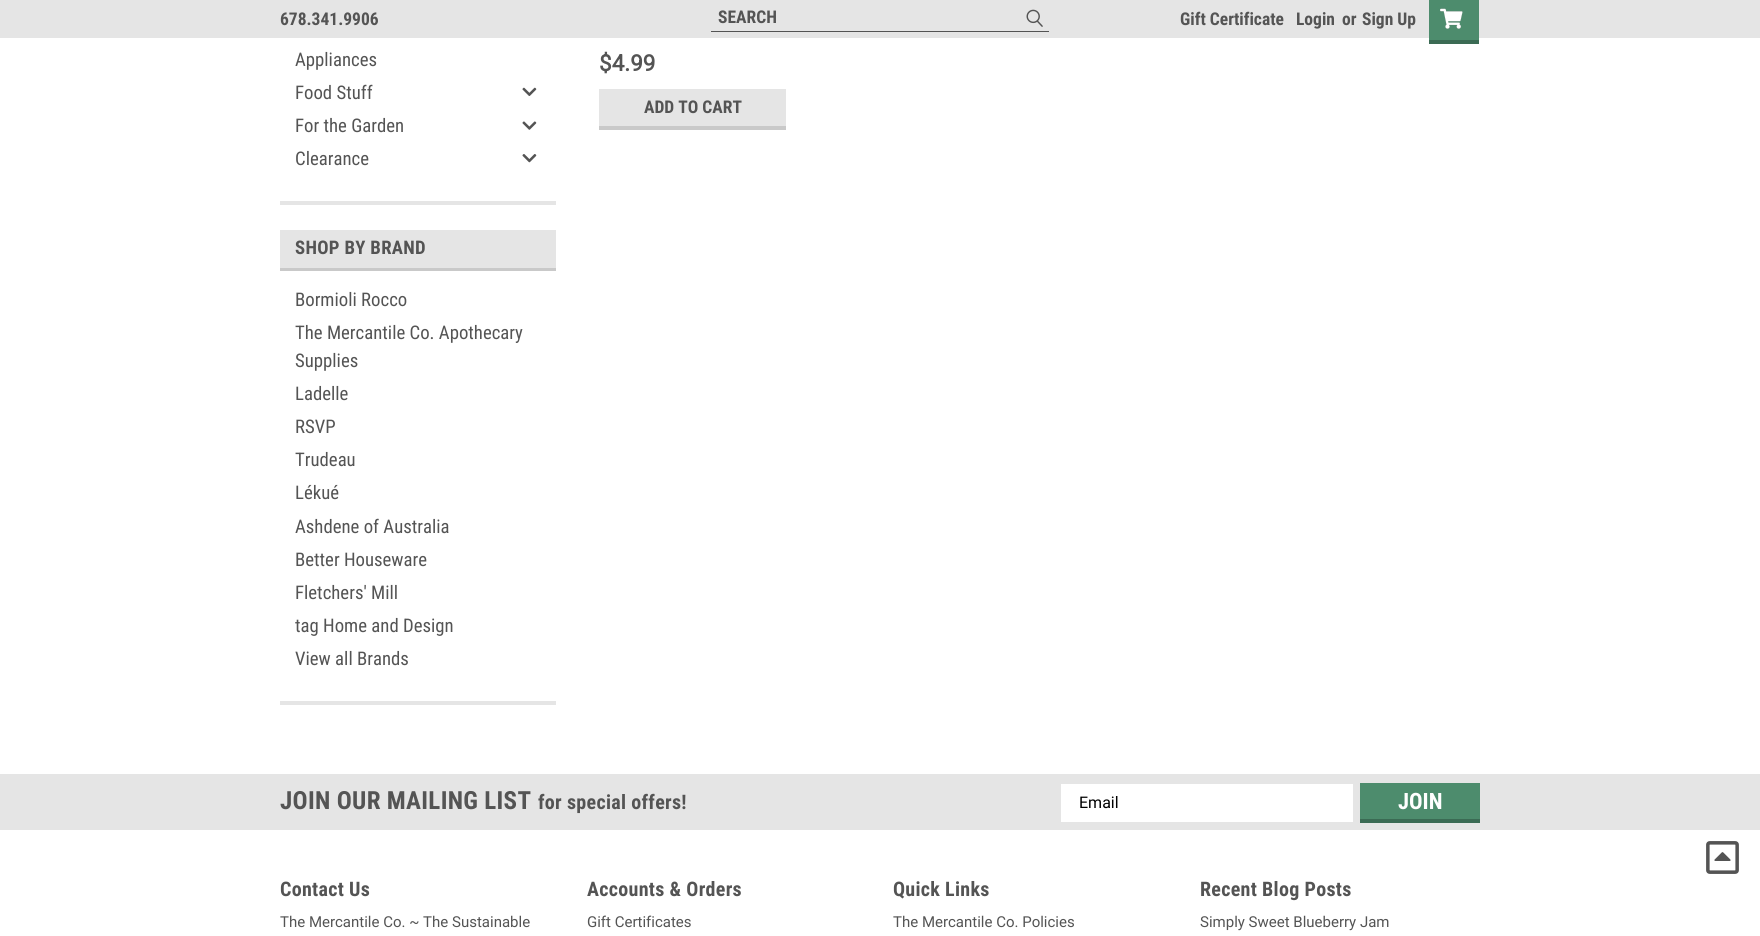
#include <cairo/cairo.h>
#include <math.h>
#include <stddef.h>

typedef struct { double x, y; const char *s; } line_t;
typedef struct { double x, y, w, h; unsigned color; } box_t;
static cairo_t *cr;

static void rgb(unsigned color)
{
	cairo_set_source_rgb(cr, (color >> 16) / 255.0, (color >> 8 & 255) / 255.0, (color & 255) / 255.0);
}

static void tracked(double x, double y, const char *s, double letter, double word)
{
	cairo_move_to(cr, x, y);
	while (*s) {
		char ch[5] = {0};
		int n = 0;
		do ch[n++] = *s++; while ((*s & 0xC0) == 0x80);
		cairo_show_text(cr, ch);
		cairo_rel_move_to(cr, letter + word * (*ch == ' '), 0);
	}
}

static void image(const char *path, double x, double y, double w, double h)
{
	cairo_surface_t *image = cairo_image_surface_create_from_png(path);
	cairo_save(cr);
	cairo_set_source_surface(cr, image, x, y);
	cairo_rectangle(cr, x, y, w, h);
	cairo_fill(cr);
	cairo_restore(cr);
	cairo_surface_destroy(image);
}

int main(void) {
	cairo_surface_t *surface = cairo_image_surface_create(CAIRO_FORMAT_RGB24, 1760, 936);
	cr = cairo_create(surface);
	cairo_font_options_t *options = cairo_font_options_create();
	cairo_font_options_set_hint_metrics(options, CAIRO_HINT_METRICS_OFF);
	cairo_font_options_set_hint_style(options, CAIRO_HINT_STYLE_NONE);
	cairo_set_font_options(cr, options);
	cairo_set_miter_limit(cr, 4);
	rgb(0xffffff);
	cairo_paint(cr);
	rgb(0xe5e5e5);
	cairo_rectangle(cr, 0, 0, 1760, 38);
	cairo_fill(cr);
	rgb(0x545454);
	cairo_rectangle(cr, 711, 31, 338, 1);
	cairo_fill(cr);
	image("img/1.png", 1026, 9, 17, 18);
	rgb(0x4d8c6d);
	cairo_rectangle(cr, 1429, 0, 50, 40);
	cairo_fill(cr);
	rgb(0x3b6b54);
	cairo_rectangle(cr, 1429, 40, 50, 4);
	cairo_fill(cr);
	image("img/2.png", 1440, 8, 23, 21);
	rgb(0xe5e5e5);
	cairo_rectangle(cr, 280, 201, 276, 4);
	cairo_fill(cr);
	image("img/3.png", 522, 87, 15, 9);
	image("img/4.png", 522, 121, 15, 9);
	image("img/5.png", 522, 154, 15, 9);
	{
		static const box_t items[] = {
			{280, 701, 276, 4, 0xe5e5e5},
			{280, 230, 276, 38, 0xe5e5e5},
			{280, 268, 276, 3, 0xc9c9c9},
			{599, 89, 187, 37, 0xe5e5e5},
			{599, 126, 187, 4, 0xc9c9c9},
			{0, 774, 1760, 56, 0xe5e5e5},
			{1061, 784, 292, 38, 0xffffff},
			{1360, 783, 120, 36, 0x4d8c6d},
			{1360, 819, 120, 4, 0x3b6b54},
		};
		for (size_t i = 0; i < sizeof items / sizeof *items; i++) {
			rgb(items[i].color);
			cairo_rectangle(cr, items[i].x, items[i].y, items[i].w, items[i].h);
			cairo_fill(cr);
		}
	}
	image("img/6.png", 1706, 841, 33, 33);
	cairo_select_font_face(cr, "Roboto Condensed", CAIRO_FONT_SLANT_NORMAL, CAIRO_FONT_WEIGHT_BOLD);
	cairo_set_font_size(cr, 17.5);
	rgb(0x545454);
	{
		static const line_t items[] = {
			{718, 23, "SEARCH"},
			{280, 25, "678.341.9906"},
			{1180, 25, "Gift Certificate"},
			{1296, 25, "Login"},
			{1342, 25, "or"},
			{1362, 25, "Sign Up"},
		};
		for (size_t i = 0; i < sizeof items / sizeof *items; i++) {
			cairo_move_to(cr, items[i].x, items[i].y);
			cairo_show_text(cr, items[i].s);
		}
	}
	cairo_select_font_face(cr, "Roboto Condensed", CAIRO_FONT_SLANT_NORMAL, CAIRO_FONT_WEIGHT_NORMAL);
	cairo_set_font_size(cr, 18.75);
	{
		static const line_t items[] = {
			{295, 66, "Appliances"},
			{295, 99, "Food Stuff"},
			{295, 132, "For the Garden"},
			{295, 165, "Clearance"},
		};
		for (size_t i = 0; i < sizeof items / sizeof *items; i++) {
			cairo_move_to(cr, items[i].x, items[i].y);
			cairo_show_text(cr, items[i].s);
		}
	}
	cairo_select_font_face(cr, "Roboto Condensed", CAIRO_FONT_SLANT_NORMAL, CAIRO_FONT_WEIGHT_BOLD);
	tracked(295, 254, "SHOP BY BRAND", 0.3, 0);
	cairo_select_font_face(cr, "Roboto Condensed", CAIRO_FONT_SLANT_NORMAL, CAIRO_FONT_WEIGHT_NORMAL);
	{
		static const line_t items[] = {
			{295, 306, "Bormioli Rocco"},
			{295, 339, "The Mercantile Co. Apothecary"},
			{295, 367, "Supplies"},
			{295, 400, "Ladelle"},
			{295, 433, "RSVP"},
			{295, 466, "Trudeau"},
			{295, 499, "Lékué"},
			{295, 533, "Ashdene of Australia"},
			{295, 566, "Better Houseware"},
			{295, 599, "Fletchers' Mill"},
			{295, 632, "tag Home and Design"},
			{295, 665, "View all Brands"},
		};
		for (size_t i = 0; i < sizeof items / sizeof *items; i++) {
			cairo_move_to(cr, items[i].x, items[i].y);
			cairo_show_text(cr, items[i].s);
		}
	}
	cairo_select_font_face(cr, "Roboto", CAIRO_FONT_SLANT_NORMAL, CAIRO_FONT_WEIGHT_BOLD);
	cairo_set_font_size(cr, 22.5);
	cairo_move_to(cr, 599, 71);
	cairo_show_text(cr, "$4.99");
	cairo_select_font_face(cr, "Roboto Condensed", CAIRO_FONT_SLANT_NORMAL, CAIRO_FONT_WEIGHT_BOLD);
	cairo_set_font_size(cr, 17.5);
	cairo_move_to(cr, 644, 113);
	cairo_show_text(cr, "ADD TO CART");
	cairo_set_font_size(cr, 25);
	tracked(280, 809, "JOIN OUR MAILING LIST", 0.3, 0);
	cairo_set_font_size(cr, 20);
	tracked(538, 809, "for special offers!", 0.3, 0);
	cairo_select_font_face(cr, "Roboto", CAIRO_FONT_SLANT_NORMAL, CAIRO_FONT_WEIGHT_NORMAL);
	cairo_set_font_size(cr, 16);
	rgb(0x000000);
	cairo_move_to(cr, 1079, 808);
	cairo_show_text(cr, "Email");
	cairo_select_font_face(cr, "Roboto Condensed", CAIRO_FONT_SLANT_NORMAL, CAIRO_FONT_WEIGHT_BOLD);
	cairo_set_font_size(cr, 22.5);
	rgb(0xffffff);
	cairo_move_to(cr, 1398, 809);
	cairo_show_text(cr, "JOIN");
	cairo_set_font_size(cr, 20);
	rgb(0x545454);
	tracked(280, 896, "Contact Us", 0.3, 0);
	cairo_select_font_face(cr, "Roboto", CAIRO_FONT_SLANT_NORMAL, CAIRO_FONT_WEIGHT_NORMAL);
	cairo_set_font_size(cr, 15);
	cairo_move_to(cr, 280, 927);
	cairo_show_text(cr, "The Mercantile Co. ~ The Sustainable");
	cairo_select_font_face(cr, "Roboto Condensed", CAIRO_FONT_SLANT_NORMAL, CAIRO_FONT_WEIGHT_BOLD);
	cairo_set_font_size(cr, 20);
	tracked(587, 896, "Accounts & Orders", 0.3, 0);
	cairo_select_font_face(cr, "Roboto", CAIRO_FONT_SLANT_NORMAL, CAIRO_FONT_WEIGHT_NORMAL);
	cairo_set_font_size(cr, 15);
	cairo_move_to(cr, 587, 927);
	cairo_show_text(cr, "Gift Certificates");
	cairo_select_font_face(cr, "Roboto Condensed", CAIRO_FONT_SLANT_NORMAL, CAIRO_FONT_WEIGHT_BOLD);
	cairo_set_font_size(cr, 20);
	tracked(893, 896, "Quick Links", 0.3, 0);
	cairo_select_font_face(cr, "Roboto", CAIRO_FONT_SLANT_NORMAL, CAIRO_FONT_WEIGHT_NORMAL);
	cairo_set_font_size(cr, 15);
	cairo_move_to(cr, 893, 927);
	cairo_show_text(cr, "The Mercantile Co. Policies");
	cairo_select_font_face(cr, "Roboto Condensed", CAIRO_FONT_SLANT_NORMAL, CAIRO_FONT_WEIGHT_BOLD);
	cairo_set_font_size(cr, 20);
	tracked(1200, 896, "Recent Blog Posts", 0.3, 0);
	cairo_select_font_face(cr, "Roboto", CAIRO_FONT_SLANT_NORMAL, CAIRO_FONT_WEIGHT_NORMAL);
	cairo_set_font_size(cr, 15);
	cairo_move_to(cr, 1200, 927);
	cairo_show_text(cr, "Simply Sweet Blueberry Jam");
	cairo_surface_write_to_png(surface, "page.png");
	cairo_font_options_destroy(options);
	cairo_destroy(cr);
	cairo_surface_destroy(surface);
	return 0;
}
